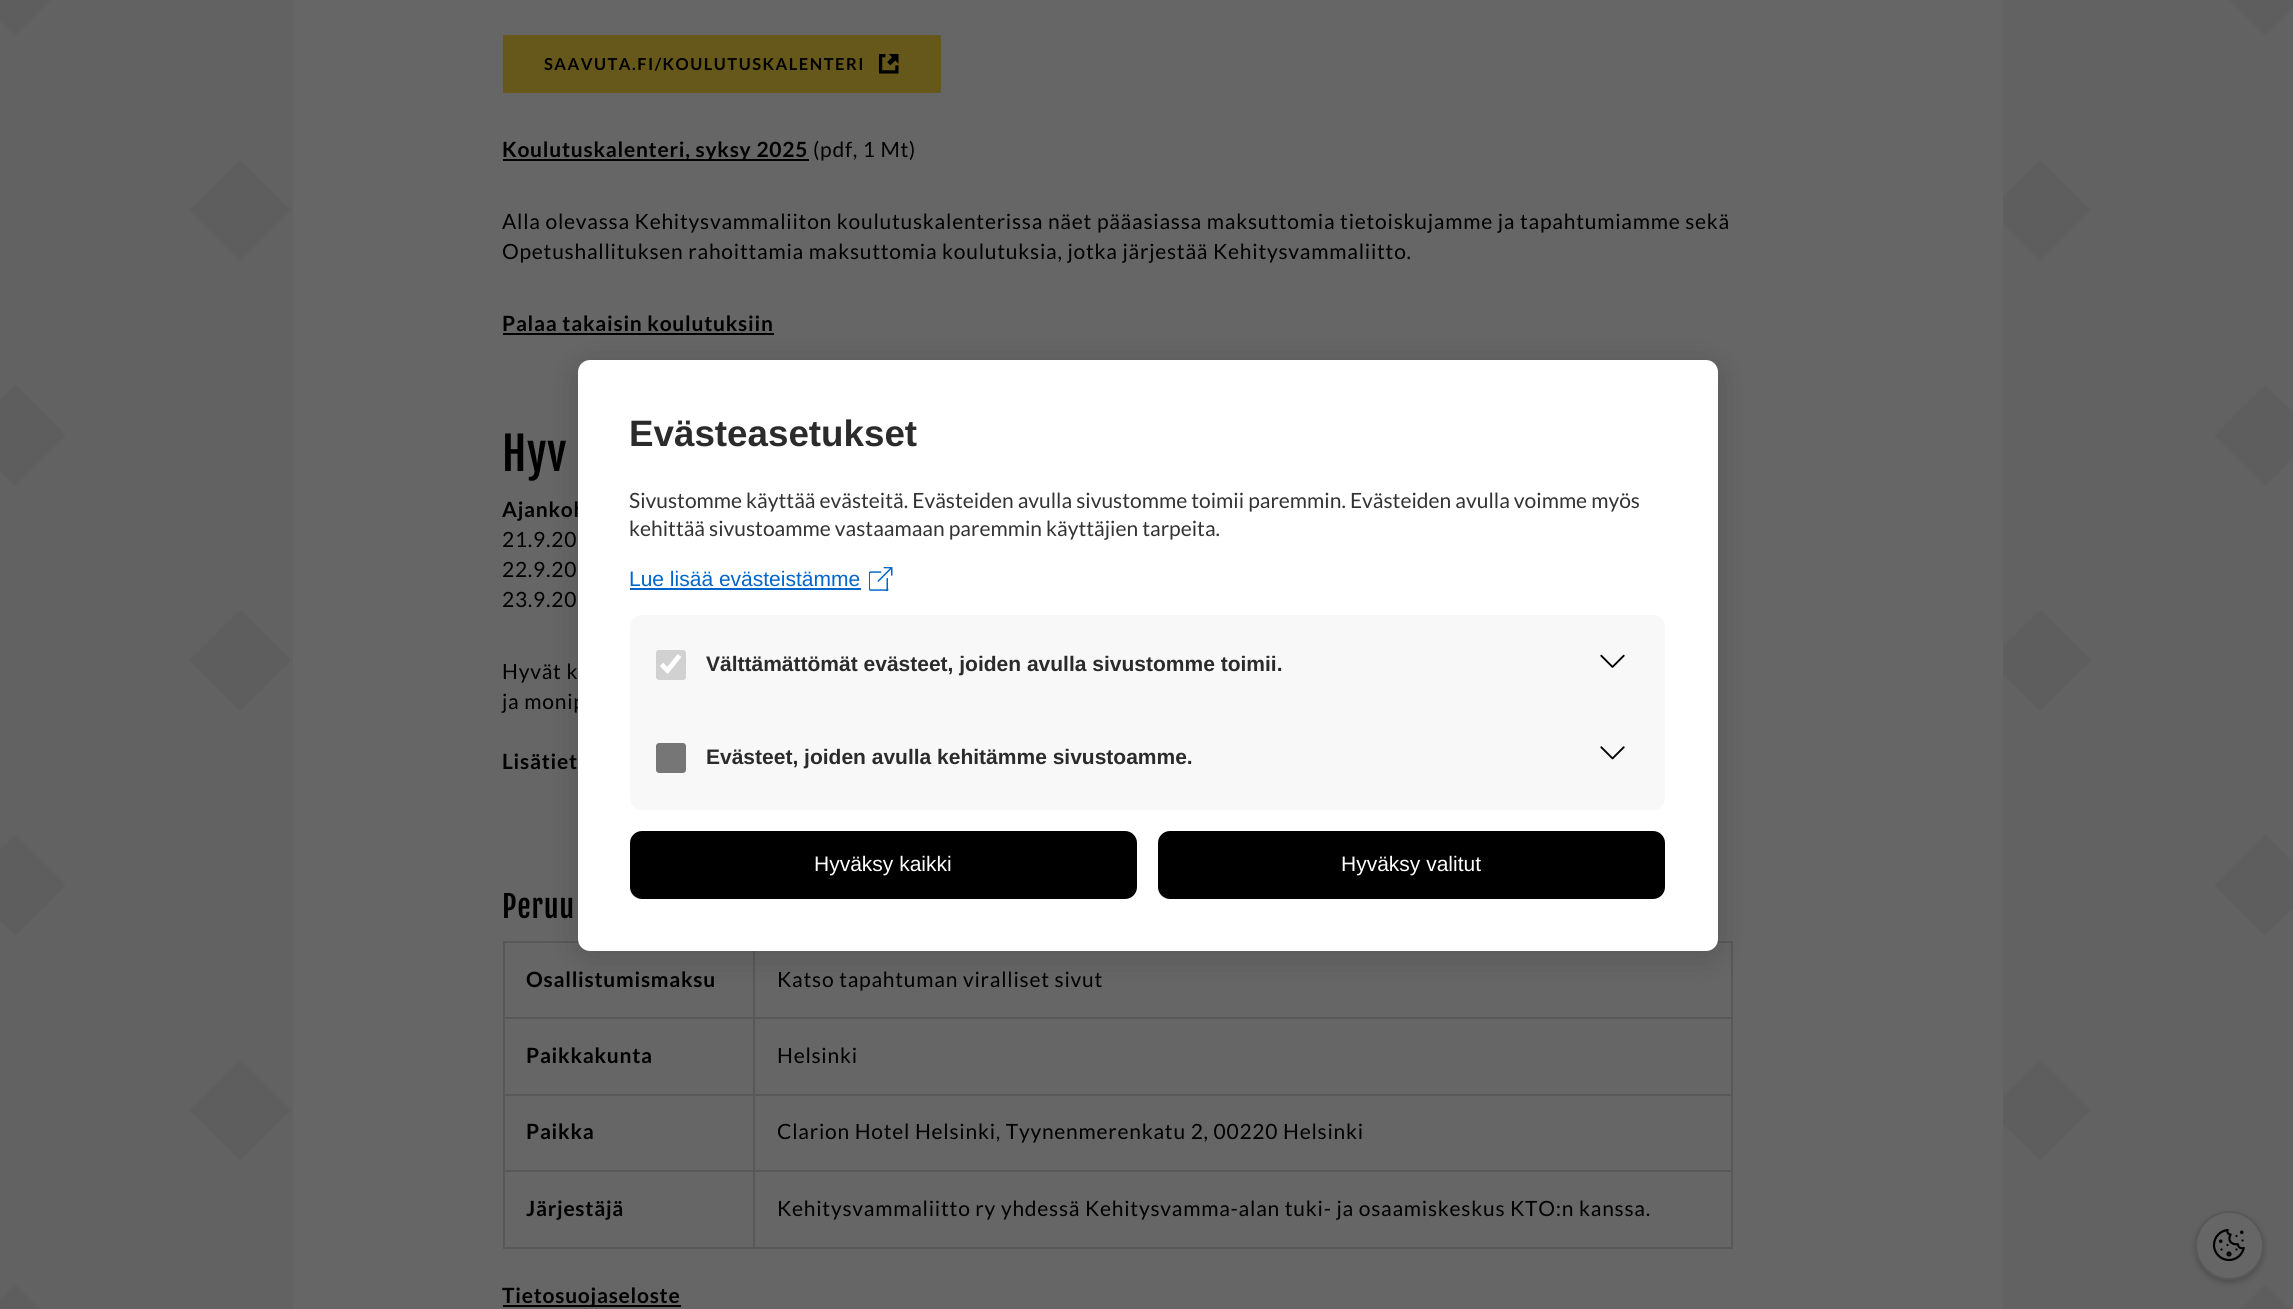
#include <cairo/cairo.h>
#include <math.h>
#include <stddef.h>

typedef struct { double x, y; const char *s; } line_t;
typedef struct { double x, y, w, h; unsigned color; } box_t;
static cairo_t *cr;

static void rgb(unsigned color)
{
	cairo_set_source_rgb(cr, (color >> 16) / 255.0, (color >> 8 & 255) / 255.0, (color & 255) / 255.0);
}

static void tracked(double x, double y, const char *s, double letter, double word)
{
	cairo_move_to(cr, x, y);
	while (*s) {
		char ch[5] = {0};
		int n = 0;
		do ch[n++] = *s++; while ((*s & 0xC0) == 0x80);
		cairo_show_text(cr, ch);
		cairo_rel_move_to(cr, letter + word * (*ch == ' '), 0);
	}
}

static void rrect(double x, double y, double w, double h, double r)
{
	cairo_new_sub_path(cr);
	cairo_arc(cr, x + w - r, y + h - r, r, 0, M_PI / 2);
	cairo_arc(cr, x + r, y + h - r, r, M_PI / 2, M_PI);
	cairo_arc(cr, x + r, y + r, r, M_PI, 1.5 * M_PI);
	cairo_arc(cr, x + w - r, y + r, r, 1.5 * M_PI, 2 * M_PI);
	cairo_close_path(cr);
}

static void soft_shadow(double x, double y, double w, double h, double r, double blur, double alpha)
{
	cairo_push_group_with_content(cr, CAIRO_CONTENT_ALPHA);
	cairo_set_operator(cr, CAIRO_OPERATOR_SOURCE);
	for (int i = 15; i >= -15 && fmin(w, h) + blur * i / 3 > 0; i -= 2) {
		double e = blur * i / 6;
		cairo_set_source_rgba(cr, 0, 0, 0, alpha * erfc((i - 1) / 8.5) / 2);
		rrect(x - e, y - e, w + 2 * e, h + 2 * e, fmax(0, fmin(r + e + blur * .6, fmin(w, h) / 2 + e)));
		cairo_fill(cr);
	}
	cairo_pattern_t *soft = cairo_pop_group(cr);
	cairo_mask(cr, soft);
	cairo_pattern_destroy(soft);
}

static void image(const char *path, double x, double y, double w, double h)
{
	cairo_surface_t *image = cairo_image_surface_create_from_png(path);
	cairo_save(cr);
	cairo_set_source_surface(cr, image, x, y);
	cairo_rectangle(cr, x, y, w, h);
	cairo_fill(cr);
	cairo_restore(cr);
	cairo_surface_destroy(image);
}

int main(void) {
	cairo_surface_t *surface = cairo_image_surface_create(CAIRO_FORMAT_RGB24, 2293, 1309);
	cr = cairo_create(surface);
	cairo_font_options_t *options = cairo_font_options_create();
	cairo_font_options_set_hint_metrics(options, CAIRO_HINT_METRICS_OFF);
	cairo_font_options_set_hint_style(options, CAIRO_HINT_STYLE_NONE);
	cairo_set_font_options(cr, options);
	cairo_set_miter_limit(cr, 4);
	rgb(0x626262);
	cairo_paint(cr);
	image("img/1.png", 0, 0, 2293, 1309);
	rgb(0x666666);
	cairo_rectangle(cr, 293, 0, 1710, 1309);
	cairo_fill(cr);
	rgb(0x66581b);
	cairo_rectangle(cr, 503, 35, 438, 58);
	cairo_fill(cr);
	image("img/2.png", 879, 54, 20, 20);
	{
		static const box_t items[] = {
			{503, 159, 306, 2, 0x000000},
			{503, 333, 271, 2, 0x000000},
			{503, 941, 1230, 2, 0x585858},
			{1731, 941, 2, 307, 0x585858},
			{503, 1247, 1230, 2, 0x585858},
			{503, 941, 2, 307, 0x585858},
			{753, 1017, 980, 2, 0x585858},
			{753, 1094, 980, 2, 0x585858},
			{753, 1170, 980, 2, 0x585858},
			{753, 1170, 2, 78, 0x585858},
			{503, 1170, 252, 2, 0x585858},
			{753, 1094, 2, 78, 0x585858},
			{503, 1094, 252, 2, 0x585858},
			{753, 1017, 2, 78, 0x585858},
			{503, 1017, 252, 2, 0x585858},
			{753, 951, 2, 68, 0x585858},
			{503, 1305, 178, 2, 0x000000},
		};
		for (size_t i = 0; i < sizeof items / sizeof *items; i++) {
			rgb(items[i].color);
			cairo_rectangle(cr, items[i].x, items[i].y, items[i].w, items[i].h);
			cairo_fill(cr);
		}
	}
	rgb(0x000000);
	soft_shadow(578, 366, 1140, 591, 12, 18, 0.15);
	soft_shadow(2195, 1214, 69, 69, 34.5, 3, 0.2);
	rgb(0x666666);
	cairo_arc(cr, 2229.5, 1245.5, 33.5, 0, 2 * M_PI);
	cairo_fill_preserve(cr);
	rgb(0x585858);
	cairo_stroke(cr);
	image("img/6.png", 2212, 1228, 33, 34);
	cairo_select_font_face(cr, "Lato", CAIRO_FONT_SLANT_NORMAL, CAIRO_FONT_WEIGHT_BOLD);
	cairo_set_font_size(cr, 16.5);
	rgb(0x000000);
	tracked(544, 70, "SAAVUTA.FI/KOULUTUSKALENTERI", 1.5, 0);
	cairo_set_font_size(cr, 21);
	tracked(502, 157, "Koulutuskalenteri, syksy 2025", 0.75, 0);
	cairo_select_font_face(cr, "Lato", CAIRO_FONT_SLANT_NORMAL, CAIRO_FONT_WEIGHT_NORMAL);
	{
		static const line_t items[] = {
			{813, 157, "(pdf, 1 Mt)"},
			{502, 229, "Alla olevassa Kehitysvammaliiton koulutuskalenterissa näet pääasiassa maksuttomia tietoiskujamme ja tapahtumiamme sekä"},
			{502, 259, "Opetushallituksen rahoittamia maksuttomia koulutuksia, jotka järjestää Kehitysvammaliitto."},
		};
		for (size_t i = 0; i < sizeof items / sizeof *items; i++) {
			tracked(items[i].x, items[i].y, items[i].s, 0.75, 0);
		}
	}
	cairo_select_font_face(cr, "Lato", CAIRO_FONT_SLANT_NORMAL, CAIRO_FONT_WEIGHT_BOLD);
	tracked(502, 331, "Palaa takaisin koulutuksiin", 0.75, 0);
	cairo_select_font_face(cr, "Fjalla One", CAIRO_FONT_SLANT_NORMAL, CAIRO_FONT_WEIGHT_NORMAL);
	cairo_set_font_size(cr, 45);
	tracked(502, 471, "Hyv", 0.75, 0);
	cairo_select_font_face(cr, "Lato", CAIRO_FONT_SLANT_NORMAL, CAIRO_FONT_WEIGHT_BOLD);
	cairo_set_font_size(cr, 21);
	tracked(502, 517, "Ajankoh", 0.75, 0);
	cairo_select_font_face(cr, "Lato", CAIRO_FONT_SLANT_NORMAL, CAIRO_FONT_WEIGHT_NORMAL);
	{
		static const line_t items[] = {
			{502, 547, "21.9.20"},
			{502, 577, "22.9.20"},
			{502, 607, "23.9.20"},
			{502, 679, "Hyvät k"},
			{502, 709, "ja monip"},
		};
		for (size_t i = 0; i < sizeof items / sizeof *items; i++) {
			tracked(items[i].x, items[i].y, items[i].s, 0.75, 0);
		}
	}
	cairo_select_font_face(cr, "Lato", CAIRO_FONT_SLANT_NORMAL, CAIRO_FONT_WEIGHT_BOLD);
	tracked(502, 769, "Lisätiet", 0.75, 0);
	cairo_select_font_face(cr, "Fjalla One", CAIRO_FONT_SLANT_NORMAL, CAIRO_FONT_WEIGHT_NORMAL);
	cairo_set_font_size(cr, 30);
	tracked(502, 918, "Peruu", 0.75, 0);
	cairo_select_font_face(cr, "Lato", CAIRO_FONT_SLANT_NORMAL, CAIRO_FONT_WEIGHT_BOLD);
	cairo_set_font_size(cr, 21);
	tracked(526, 987, "Osallistumismaksu", 0.75, 0);
	cairo_select_font_face(cr, "Lato", CAIRO_FONT_SLANT_NORMAL, CAIRO_FONT_WEIGHT_NORMAL);
	tracked(777, 987, "Katso tapahtuman viralliset sivut", 0.75, 0);
	cairo_select_font_face(cr, "Lato", CAIRO_FONT_SLANT_NORMAL, CAIRO_FONT_WEIGHT_BOLD);
	tracked(526, 1063, "Paikkakunta", 0.75, 0);
	cairo_select_font_face(cr, "Lato", CAIRO_FONT_SLANT_NORMAL, CAIRO_FONT_WEIGHT_NORMAL);
	tracked(777, 1063, "Helsinki", 0.75, 0);
	cairo_select_font_face(cr, "Lato", CAIRO_FONT_SLANT_NORMAL, CAIRO_FONT_WEIGHT_BOLD);
	tracked(526, 1139, "Paikka", 0.75, 0);
	cairo_select_font_face(cr, "Lato", CAIRO_FONT_SLANT_NORMAL, CAIRO_FONT_WEIGHT_NORMAL);
	tracked(777, 1139, "Clarion Hotel Helsinki, Tyynenmerenkatu 2, 00220 Helsinki", 0.75, 0);
	cairo_select_font_face(cr, "Lato", CAIRO_FONT_SLANT_NORMAL, CAIRO_FONT_WEIGHT_BOLD);
	tracked(526, 1216, "Järjestäjä", 0.75, 0);
	cairo_select_font_face(cr, "Lato", CAIRO_FONT_SLANT_NORMAL, CAIRO_FONT_WEIGHT_NORMAL);
	tracked(777, 1216, "Kehitysvammaliitto ry yhdessä Kehitysvamma-alan tuki- ja osaamiskeskus KTO:n kanssa.", 0.75, 0);
	cairo_select_font_face(cr, "Lato", CAIRO_FONT_SLANT_NORMAL, CAIRO_FONT_WEIGHT_BOLD);
	tracked(502, 1303, "Tietosuojaseloste", 0.75, 0);
	rgb(0xffffff);
	rrect(578, 360, 1140, 591, 12);
	cairo_fill(cr);
	cairo_select_font_face(cr, "Liberation Sans", CAIRO_FONT_SLANT_NORMAL, CAIRO_FONT_WEIGHT_BOLD);
	cairo_set_font_size(cr, 36.75);
	rgb(0x2b2b2b);
	cairo_move_to(cr, 629, 446);
	cairo_show_text(cr, "Evästeasetukset");
	cairo_select_font_face(cr, "Lato", CAIRO_FONT_SLANT_NORMAL, CAIRO_FONT_WEIGHT_NORMAL);
	cairo_set_font_size(cr, 21);
	rgb(0x333333);
	cairo_move_to(cr, 629, 508);
	cairo_show_text(cr, "Sivustomme käyttää evästeitä. Evästeiden avulla sivustomme toimii paremmin. Evästeiden avulla voimme myös");
	cairo_move_to(cr, 629, 536);
	cairo_show_text(cr, "kehittää sivustoamme vastaamaan paremmin käyttäjien tarpeita.");
	cairo_select_font_face(cr, "Liberation Sans", CAIRO_FONT_SLANT_NORMAL, CAIRO_FONT_WEIGHT_NORMAL);
	rgb(0x0066cc);
	cairo_move_to(cr, 629, 586);
	cairo_show_text(cr, "Lue lisää evästeistämme");
	cairo_rectangle(cr, 630, 588, 231, 2);
	cairo_fill(cr);
	image("img/3.png", 869, 567, 24, 24);
	rgb(0xf8f8f8);
	rrect(630, 615, 1035, 195, 12);
	cairo_fill(cr);
	rgb(0xd1d1d1);
	rrect(656, 650, 30, 30, 3);
	cairo_fill(cr);
	cairo_new_path(cr);
	cairo_move_to(cr, 661.5, 664.5);
	cairo_line_to(cr, 667.5, 670.5);
	cairo_line_to(cr, 679.5, 655.5);
	rgb(0xffffff);
	cairo_set_line_width(cr, 4.8);
	cairo_stroke(cr);
	cairo_select_font_face(cr, "Liberation Sans", CAIRO_FONT_SLANT_NORMAL, CAIRO_FONT_WEIGHT_BOLD);
	rgb(0x2b2b2b);
	cairo_move_to(cr, 706, 671);
	cairo_show_text(cr, "Välttämättömät evästeet, joiden avulla sivustomme toimii.");
	image("img/4.png", 1600, 654, 25, 14);
	rgb(0x767676);
	cairo_new_path(cr);
	cairo_move_to(cr, 659, 743);
	cairo_line_to(cr, 683, 743);
	cairo_curve_to(cr, 684.5, 743, 686, 744.5, 686, 746);
	cairo_line_to(cr, 686, 770);
	cairo_curve_to(cr, 686, 771.5, 684.5, 773, 683, 773);
	cairo_line_to(cr, 659, 773);
	cairo_curve_to(cr, 657.5, 773, 656, 771.5, 656, 770);
	cairo_line_to(cr, 656, 746);
	cairo_curve_to(cr, 656, 744.5, 657.5, 743, 659, 743);
	cairo_close_path(cr);
	cairo_fill(cr);
	rgb(0x2b2b2b);
	cairo_move_to(cr, 706, 764);
	cairo_show_text(cr, "Evästeet, joiden avulla kehitämme sivustoamme.");
	image("img/5.png", 1600, 746, 25, 14);
	rgb(0x000000);
	rrect(630, 831, 507, 68, 12);
	cairo_fill(cr);
	cairo_select_font_face(cr, "Liberation Sans", CAIRO_FONT_SLANT_NORMAL, CAIRO_FONT_WEIGHT_NORMAL);
	rgb(0xffffff);
	cairo_move_to(cr, 814, 871);
	cairo_show_text(cr, "Hyväksy kaikki");
	rgb(0x000000);
	rrect(1158, 831, 507, 68, 12);
	cairo_fill(cr);
	rgb(0xffffff);
	cairo_move_to(cr, 1341, 871);
	cairo_show_text(cr, "Hyväksy valitut");
	cairo_surface_write_to_png(surface, "page.png");
	cairo_font_options_destroy(options);
	cairo_destroy(cr);
	cairo_surface_destroy(surface);
	return 0;
}
